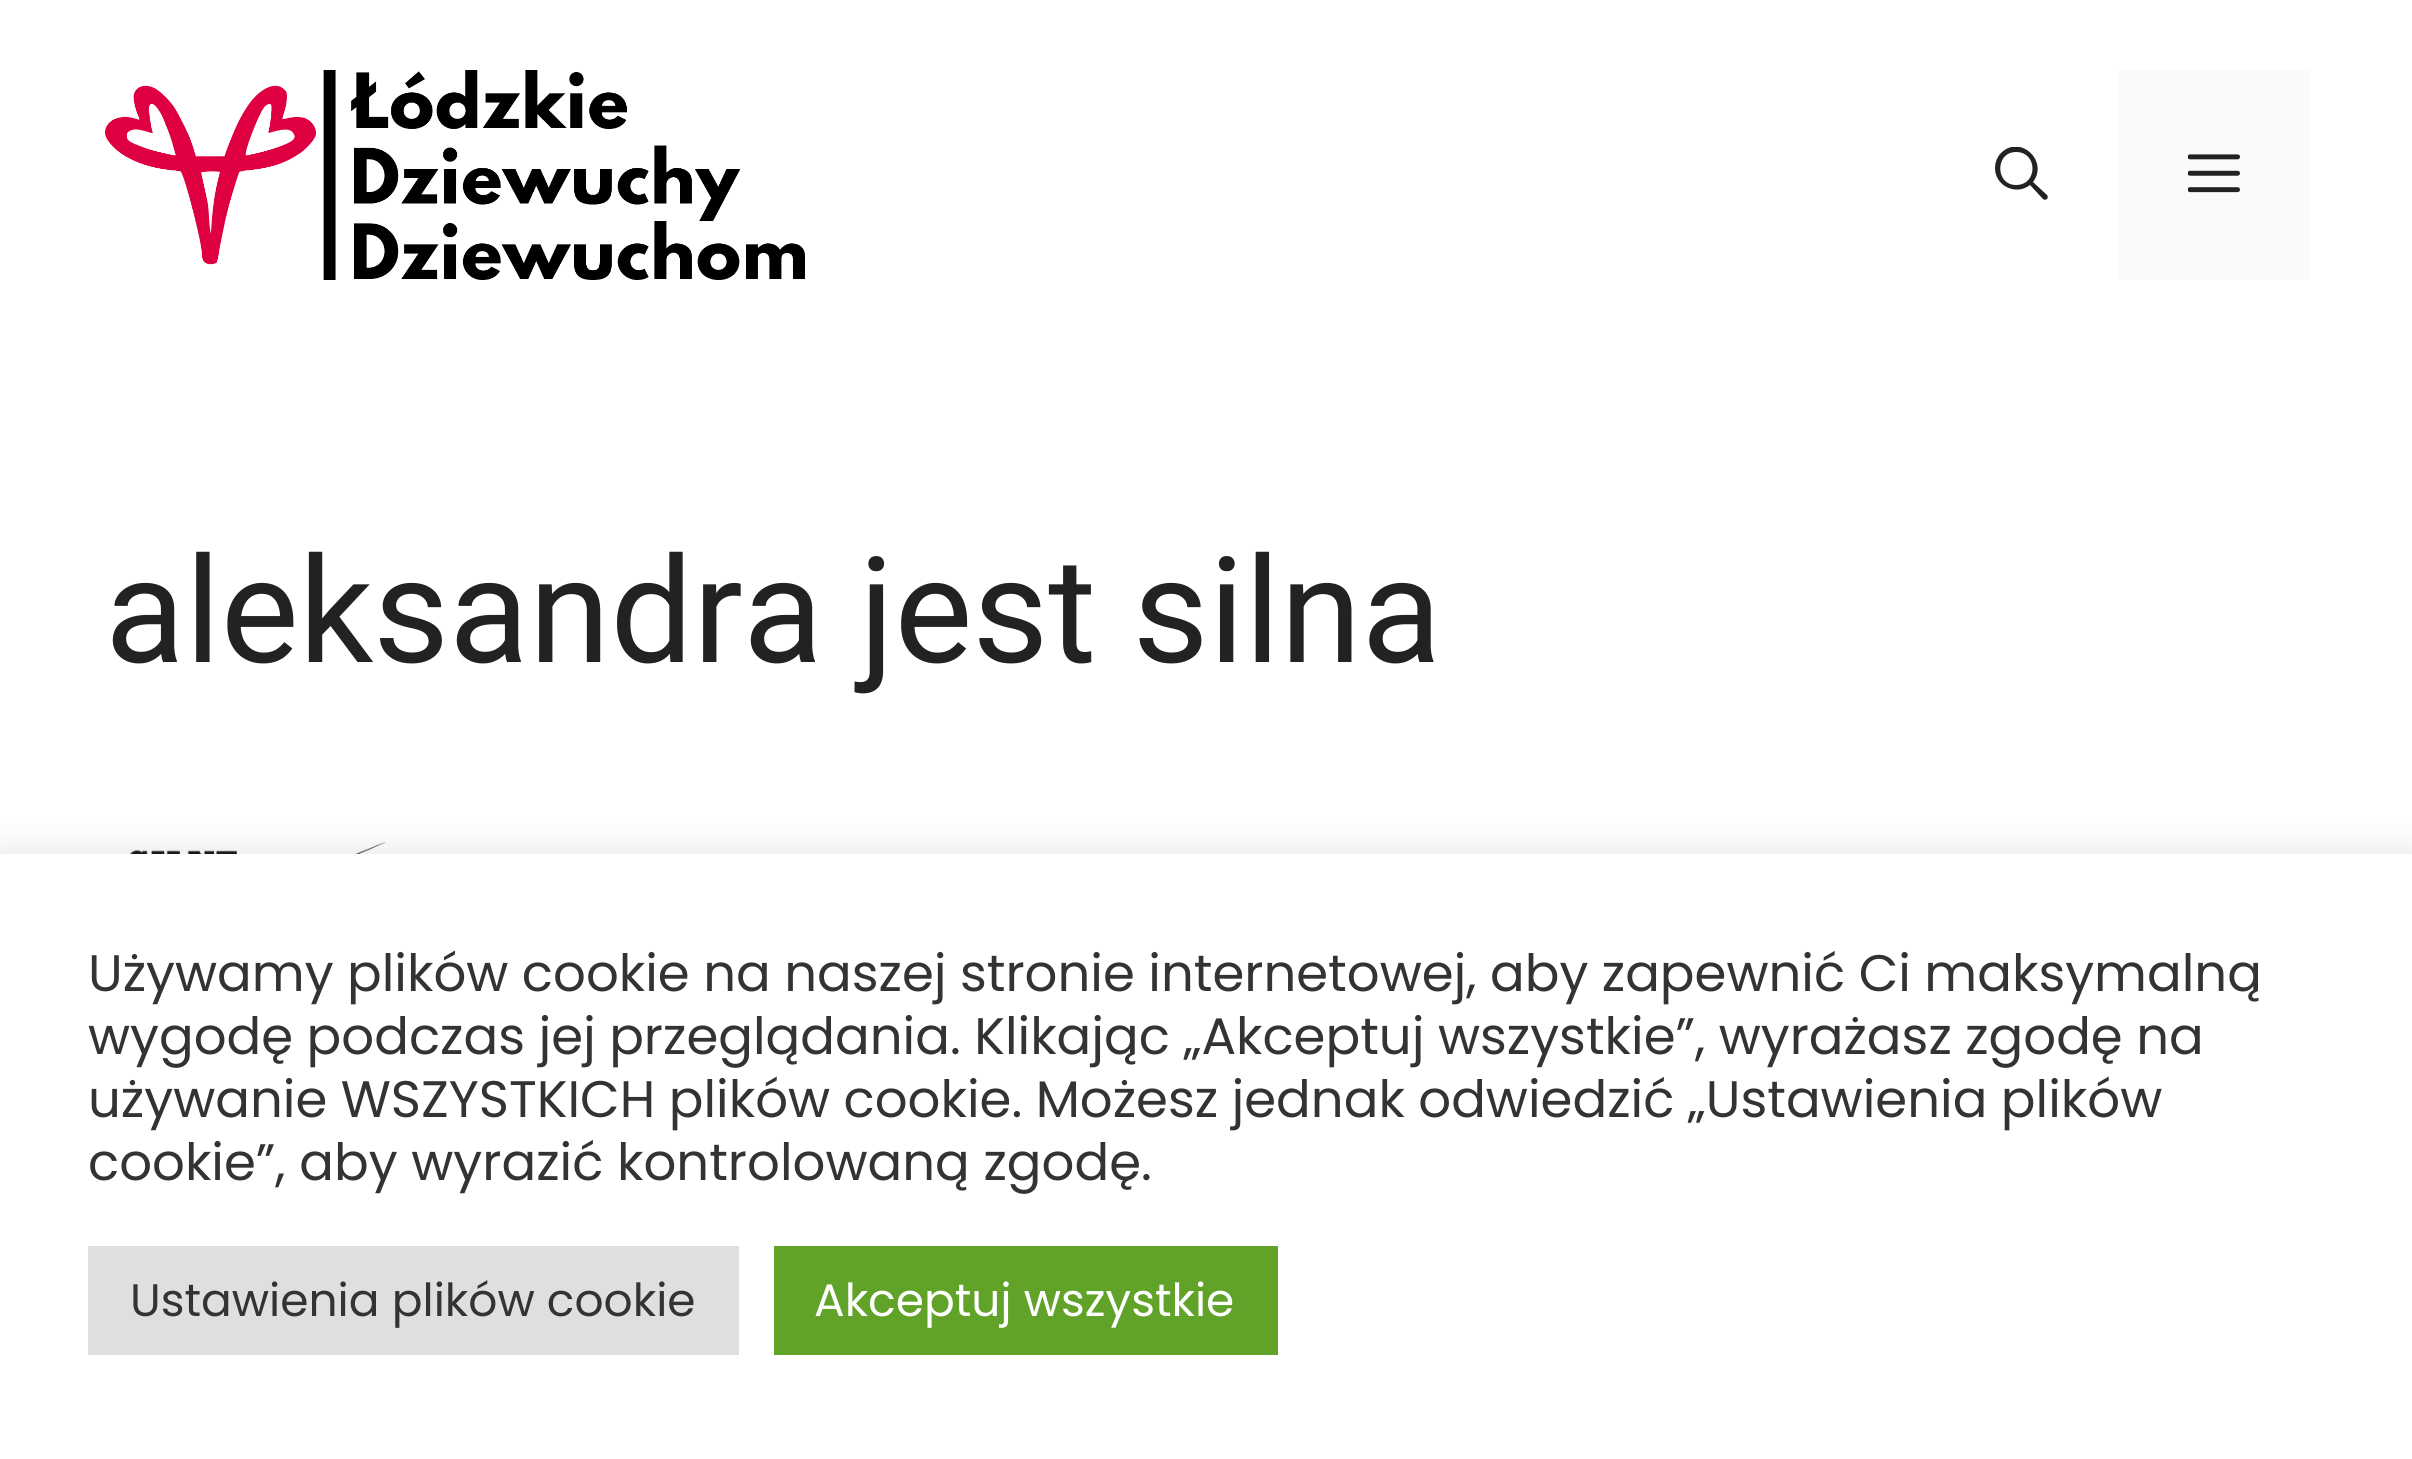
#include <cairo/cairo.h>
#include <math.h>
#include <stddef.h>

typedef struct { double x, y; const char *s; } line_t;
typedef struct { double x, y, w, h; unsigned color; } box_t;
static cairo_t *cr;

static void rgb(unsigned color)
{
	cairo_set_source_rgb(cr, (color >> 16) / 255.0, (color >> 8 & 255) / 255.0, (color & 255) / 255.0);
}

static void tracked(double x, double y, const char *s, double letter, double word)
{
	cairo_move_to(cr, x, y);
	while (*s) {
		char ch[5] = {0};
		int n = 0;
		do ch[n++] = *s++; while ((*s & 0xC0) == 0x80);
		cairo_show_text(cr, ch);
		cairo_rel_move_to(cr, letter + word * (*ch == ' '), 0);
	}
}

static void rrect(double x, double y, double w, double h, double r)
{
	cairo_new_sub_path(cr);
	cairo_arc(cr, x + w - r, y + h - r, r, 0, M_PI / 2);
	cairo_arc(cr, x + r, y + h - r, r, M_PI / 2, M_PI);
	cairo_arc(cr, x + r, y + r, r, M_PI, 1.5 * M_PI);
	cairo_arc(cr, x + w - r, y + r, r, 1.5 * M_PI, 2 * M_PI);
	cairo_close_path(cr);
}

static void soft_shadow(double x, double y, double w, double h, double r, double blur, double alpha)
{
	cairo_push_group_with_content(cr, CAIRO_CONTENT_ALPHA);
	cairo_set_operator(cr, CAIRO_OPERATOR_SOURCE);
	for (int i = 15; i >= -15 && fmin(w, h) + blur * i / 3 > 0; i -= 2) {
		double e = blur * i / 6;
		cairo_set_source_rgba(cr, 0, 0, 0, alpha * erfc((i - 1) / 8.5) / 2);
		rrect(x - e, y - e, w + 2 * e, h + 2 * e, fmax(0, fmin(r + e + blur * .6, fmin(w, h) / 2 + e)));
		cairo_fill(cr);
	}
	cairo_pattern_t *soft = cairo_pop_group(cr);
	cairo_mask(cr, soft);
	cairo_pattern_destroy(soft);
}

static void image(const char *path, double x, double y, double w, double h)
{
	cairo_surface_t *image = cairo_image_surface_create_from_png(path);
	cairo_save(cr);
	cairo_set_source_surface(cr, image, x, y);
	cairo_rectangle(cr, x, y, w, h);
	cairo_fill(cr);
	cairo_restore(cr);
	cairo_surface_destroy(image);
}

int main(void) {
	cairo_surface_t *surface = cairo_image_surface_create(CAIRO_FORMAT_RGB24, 2412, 1459);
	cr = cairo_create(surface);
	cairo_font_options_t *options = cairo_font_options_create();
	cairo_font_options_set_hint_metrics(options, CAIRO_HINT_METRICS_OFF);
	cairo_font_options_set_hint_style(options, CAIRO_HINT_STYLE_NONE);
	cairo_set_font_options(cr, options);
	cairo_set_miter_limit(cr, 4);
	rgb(0xffffff);
	cairo_paint(cr);
	image("img/1.png", 105, 70, 700, 210);
	cairo_save(cr);
	cairo_rectangle(cr, 1995, 147, 53, 53);
	cairo_clip(cr);
	rgb(0x222222);
	cairo_set_fill_rule(cr, CAIRO_FILL_RULE_EVEN_ODD);
	cairo_new_path(cr);
	cairo_move_to(cr, 2016, 152);
	cairo_curve_to(cr, 1995, 152, 1995, 185, 2016, 185);
	cairo_curve_to(cr, 2038, 185, 2038, 152, 2016, 152);
	cairo_close_path(cr);
	cairo_move_to(cr, 1995, 168);
	cairo_curve_to(cr, 1995, 163, 1997, 157, 2001, 153);
	cairo_curve_to(cr, 2020, 134, 2049, 161, 2033, 182);
	cairo_line_to(cr, 2047, 195);
	cairo_curve_to(cr, 2048, 196, 2048, 198, 2047, 199);
	cairo_curve_to(cr, 2046, 200, 2044, 200, 2043, 199);
	cairo_line_to(cr, 2030, 185);
	cairo_curve_to(cr, 2016, 196, 1995, 186, 1995, 168);
	cairo_close_path(cr);
	cairo_fill(cr);
	cairo_restore(cr);
	rgb(0xfafafa);
	cairo_rectangle(cr, 2118, 70, 192, 210);
	cairo_fill(cr);
	image("img/2.png", 2188, 154, 52, 39);
	image("img/3.png", 128, 841, 260, 13);
	rgb(0xacabab);
	soft_shadow(0, 851, 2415, 605, 0, 17.5, 0.3);
	{
		static const box_t items[] = {
			{0, 854, 2412, 605, 0xffffff},
			{88, 1246, 651, 109, 0xdedfe0},
			{774, 1246, 504, 109, 0x61a229},
		};
		for (size_t i = 0; i < sizeof items / sizeof *items; i++) {
			rgb(items[i].color);
			cairo_rectangle(cr, items[i].x, items[i].y, items[i].w, items[i].h);
			cairo_fill(cr);
		}
	}
	cairo_select_font_face(cr, "Roboto", CAIRO_FONT_SLANT_NORMAL, CAIRO_FONT_WEIGHT_NORMAL);
	cairo_set_font_size(cr, 147);
	rgb(0x222222);
	cairo_move_to(cr, 105, 662);
	cairo_show_text(cr, "aleksandra jest silna");
	cairo_select_font_face(cr, "Poppins", CAIRO_FONT_SLANT_NORMAL, CAIRO_FONT_WEIGHT_NORMAL);
	cairo_set_font_size(cr, 51.35);
	rgb(0x333333);
	{
		static const line_t items[] = {
			{88, 991, "Używamy plików cookie na naszej stronie internetowej, aby zapewnić Ci maksymalną"},
			{88, 1054, "wygodę podczas jej przeglądania. Klikając „Akceptuj wszystkie”, wyrażasz zgodę na"},
			{88, 1117, "używanie WSZYSTKICH plików cookie. Możesz jednak odwiedzić „Ustawienia plików"},
		};
		for (size_t i = 0; i < sizeof items / sizeof *items; i++) {
			tracked(items[i].x, items[i].y, items[i].s, 0, -0.25);
		}
	}
	cairo_move_to(cr, 88, 1180);
	cairo_show_text(cr, "cookie”, aby wyrazić kontrolowaną zgodę.");
	cairo_set_font_size(cr, 45.5);
	cairo_move_to(cr, 130, 1316);
	cairo_show_text(cr, "Ustawienia plików cookie");
	rgb(0xffffff);
	cairo_move_to(cr, 814, 1316);
	cairo_show_text(cr, "Akceptuj wszystkie");
	cairo_surface_write_to_png(surface, "page.png");
	cairo_font_options_destroy(options);
	cairo_destroy(cr);
	cairo_surface_destroy(surface);
	return 0;
}
